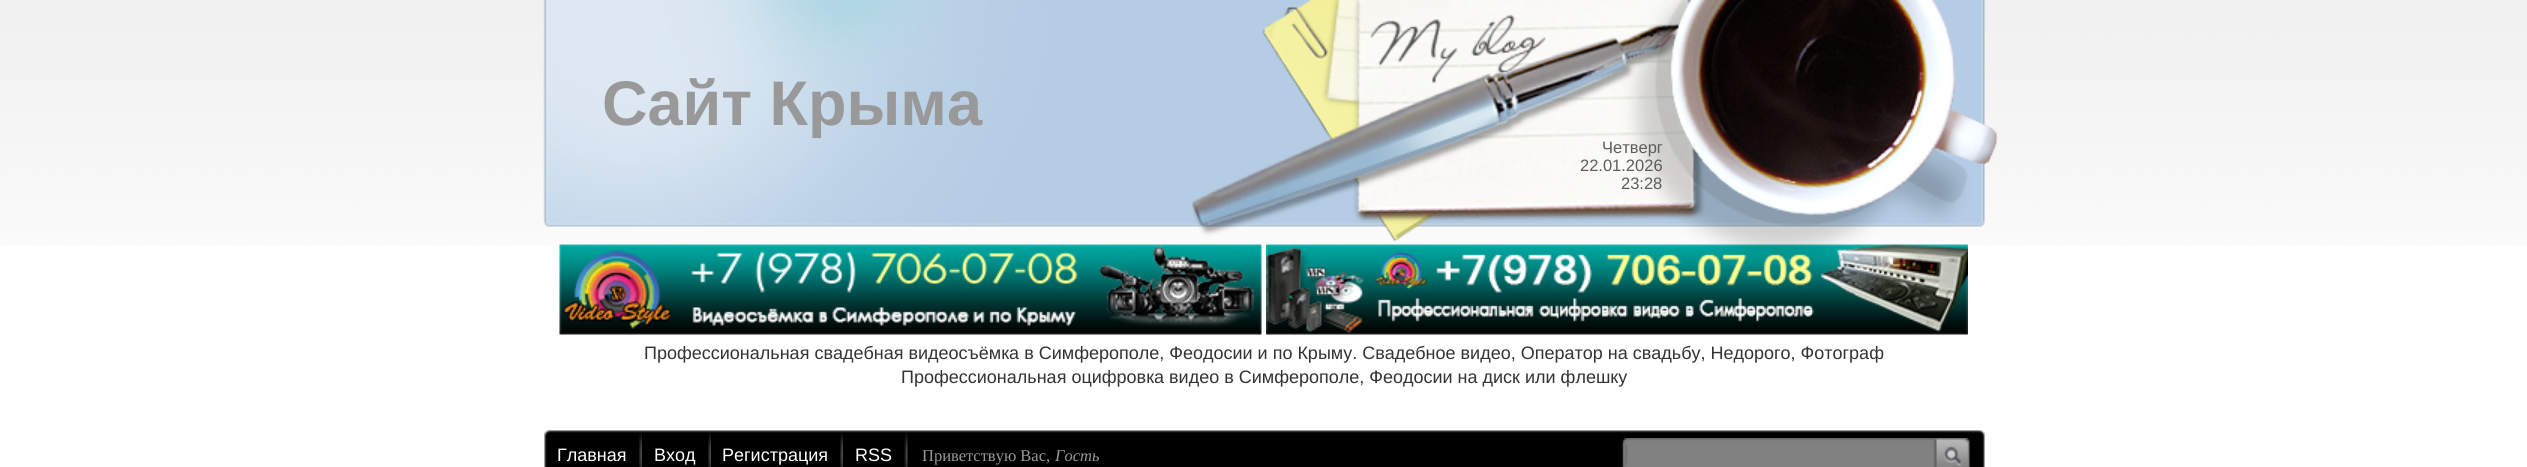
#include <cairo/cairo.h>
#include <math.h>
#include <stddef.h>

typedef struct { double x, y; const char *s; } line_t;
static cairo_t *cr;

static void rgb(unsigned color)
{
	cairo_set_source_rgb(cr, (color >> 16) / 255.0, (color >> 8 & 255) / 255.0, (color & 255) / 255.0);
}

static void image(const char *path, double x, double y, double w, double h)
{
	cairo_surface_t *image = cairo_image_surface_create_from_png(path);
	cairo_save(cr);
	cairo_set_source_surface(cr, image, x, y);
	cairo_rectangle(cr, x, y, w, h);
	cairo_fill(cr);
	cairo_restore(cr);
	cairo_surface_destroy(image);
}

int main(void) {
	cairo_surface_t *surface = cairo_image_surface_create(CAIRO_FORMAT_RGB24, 2527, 467);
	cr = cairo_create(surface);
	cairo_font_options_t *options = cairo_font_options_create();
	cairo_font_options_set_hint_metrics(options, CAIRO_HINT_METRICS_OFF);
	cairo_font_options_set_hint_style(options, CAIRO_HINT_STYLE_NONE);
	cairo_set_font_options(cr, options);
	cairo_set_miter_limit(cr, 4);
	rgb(0xffffff);
	cairo_paint(cr);
	image("img/1.png", 0, 0, 2527, 246);
	image("img/2.png", 543, 0, 1442, 227);
	image("img/4.png", 559, 244, 703, 91);
	image("img/5.png", 1266, 244, 702, 91);
	image("img/3.png", 1191, 0, 807, 259);
	image("img/6.png", 544, 430, 1441, 37);
	image("img/7.png", 639, 432, 3, 35);
	image("img/8.png", 708, 432, 3, 35);
	image("img/7.png", 840, 432, 3, 35);
	image("img/9.png", 904, 432, 4, 35);
	image("img/10.png", 1621, 438, 349, 29);
	cairo_select_font_face(cr, "Liberation Sans", CAIRO_FONT_SLANT_NORMAL, CAIRO_FONT_WEIGHT_BOLD);
	cairo_set_font_size(cr, 63);
	rgb(0x999999);
	cairo_move_to(cr, 602, 125);
	cairo_show_text(cr, "Сайт Крыма");
	cairo_select_font_face(cr, "Liberation Sans", CAIRO_FONT_SLANT_NORMAL, CAIRO_FONT_WEIGHT_NORMAL);
	cairo_set_font_size(cr, 16.5);
	rgb(0x5c5c5c);
	{
		static const line_t items[] = {
			{1602, 153, "Четверг"},
			{1580, 171, "22.01.2026"},
			{1621, 189, "23:28"},
		};
		for (size_t i = 0; i < sizeof items / sizeof *items; i++) {
			cairo_move_to(cr, items[i].x, items[i].y);
			cairo_show_text(cr, items[i].s);
		}
	}
	cairo_set_font_size(cr, 18);
	rgb(0x333333);
	cairo_move_to(cr, 644, 359);
	cairo_show_text(cr, "Профессиональная свадебная видеосъёмка в Симферополе, Феодосии и по Крыму. Свадебное видео, Оператор на свадьбу, Недорого, Фотограф");
	cairo_move_to(cr, 901, 383);
	cairo_show_text(cr, "Профессиональная оцифровка видео в Симферополе, Феодосии на диск или флешку");
	rgb(0xffffff);
	{
		static const line_t items[] = {
			{557, 461, "Главная"},
			{654, 461, "Вход"},
			{722, 461, "Регистрация"},
			{855, 461, "RSS"},
		};
		for (size_t i = 0; i < sizeof items / sizeof *items; i++) {
			cairo_move_to(cr, items[i].x, items[i].y);
			cairo_show_text(cr, items[i].s);
		}
	}
	cairo_select_font_face(cr, "Liberation Serif", CAIRO_FONT_SLANT_NORMAL, CAIRO_FONT_WEIGHT_NORMAL);
	cairo_set_font_size(cr, 16.5);
	rgb(0x999999);
	cairo_move_to(cr, 922, 461);
	cairo_show_text(cr, "Приветствую Вас,");
	cairo_select_font_face(cr, "Liberation Serif", CAIRO_FONT_SLANT_ITALIC, CAIRO_FONT_WEIGHT_NORMAL);
	cairo_move_to(cr, 1055, 461);
	cairo_show_text(cr, "Гость");
	cairo_surface_write_to_png(surface, "page.png");
	cairo_font_options_destroy(options);
	cairo_destroy(cr);
	cairo_surface_destroy(surface);
	return 0;
}
